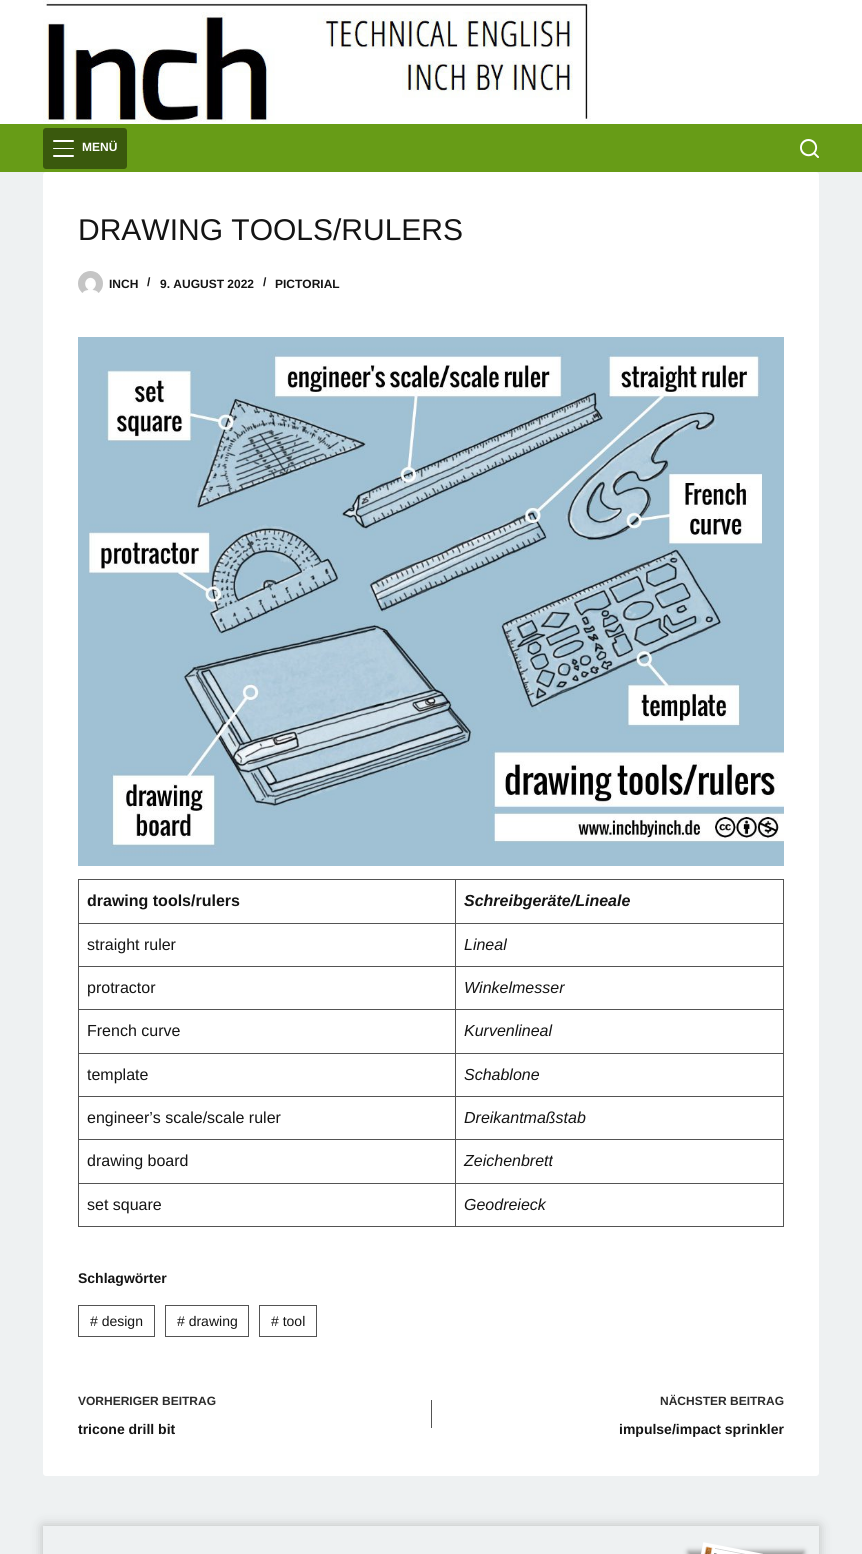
#include <cairo/cairo.h>
#include <math.h>
#include <stddef.h>

typedef struct { double x, y; const char *s; } line_t;
typedef struct { double x, y, w, h; unsigned color; } box_t;
static cairo_t *cr;

static void rgb(unsigned color)
{
	cairo_set_source_rgb(cr, (color >> 16) / 255.0, (color >> 8 & 255) / 255.0, (color & 255) / 255.0);
}

static void rrect(double x, double y, double w, double h, double r)
{
	cairo_new_sub_path(cr);
	cairo_arc(cr, x + w - r, y + h - r, r, 0, M_PI / 2);
	cairo_arc(cr, x + r, y + h - r, r, M_PI / 2, M_PI);
	cairo_arc(cr, x + r, y + r, r, M_PI, 1.5 * M_PI);
	cairo_arc(cr, x + w - r, y + r, r, 1.5 * M_PI, 2 * M_PI);
	cairo_close_path(cr);
}

static void soft_shadow(double x, double y, double w, double h, double r, double blur, double alpha)
{
	cairo_push_group_with_content(cr, CAIRO_CONTENT_ALPHA);
	cairo_set_operator(cr, CAIRO_OPERATOR_SOURCE);
	for (int i = 15; i >= -15 && fmin(w, h) + blur * i / 3 > 0; i -= 2) {
		double e = blur * i / 6;
		cairo_set_source_rgba(cr, 0, 0, 0, alpha * erfc((i - 1) / 8.5) / 2);
		rrect(x - e, y - e, w + 2 * e, h + 2 * e, fmax(0, fmin(r + e + blur * .6, fmin(w, h) / 2 + e)));
		cairo_fill(cr);
	}
	cairo_pattern_t *soft = cairo_pop_group(cr);
	cairo_mask(cr, soft);
	cairo_pattern_destroy(soft);
}

static void image(const char *path, double x, double y, double w, double h)
{
	cairo_surface_t *image = cairo_image_surface_create_from_png(path);
	cairo_save(cr);
	cairo_set_source_surface(cr, image, x, y);
	cairo_rectangle(cr, x, y, w, h);
	cairo_fill(cr);
	cairo_restore(cr);
	cairo_surface_destroy(image);
}

int main(void) {
	cairo_surface_t *surface = cairo_image_surface_create(CAIRO_FORMAT_RGB24, 862, 1554);
	cr = cairo_create(surface);
	cairo_font_options_t *options = cairo_font_options_create();
	cairo_font_options_set_hint_metrics(options, CAIRO_HINT_METRICS_OFF);
	cairo_font_options_set_hint_style(options, CAIRO_HINT_STYLE_NONE);
	cairo_set_font_options(cr, options);
	cairo_set_miter_limit(cr, 4);
	rgb(0xeef1f2);
	cairo_paint(cr);
	rgb(0xffffff);
	cairo_rectangle(cr, 0, 0, 862, 124);
	cairo_fill(cr);
	image("img/1.png", 43, 0, 548, 122);
	rgb(0x679c17);
	cairo_rectangle(cr, 0, 124, 862, 48);
	cairo_fill(cr);
	rgb(0x3a590d);
	rrect(43, 128, 84, 41, 3);
	cairo_fill(cr);
	rgb(0xffffff);
	rrect(53, 140, 21, 2, 1);
	cairo_fill(cr);
	rrect(53, 148, 21, 1, 0.5);
	cairo_fill(cr);
	rrect(53, 155, 21, 2, 1);
	cairo_fill(cr);
	image("img/2.png", 800, 139, 19, 19);
	rrect(43, 172, 776, 1304, 3);
	cairo_fill(cr);
	image("img/3.png", 78, 271, 25, 22);
	image("img/4.png", 78, 337, 706, 529);
	{
		static const box_t items[] = {
			{78, 879, 706, 1, 0x535353},
			{783, 879, 1, 348, 0x535353},
			{78, 1226, 706, 1, 0x535353},
			{78, 879, 1, 348, 0x535353},
			{455, 923, 329, 1, 0x535353},
			{455, 966, 329, 1, 0x535353},
			{455, 1009, 329, 1, 0x535353},
			{455, 1053, 329, 1, 0x535353},
			{455, 1096, 329, 1, 0x535353},
			{455, 1139, 329, 1, 0x535353},
			{455, 1183, 329, 1, 0x535353},
			{455, 1183, 1, 44, 0x535353},
			{78, 1183, 378, 1, 0x535353},
			{455, 1139, 1, 45, 0x535353},
			{78, 1139, 378, 1, 0x535353},
			{455, 1096, 1, 44, 0x535353},
			{78, 1096, 378, 1, 0x535353},
			{455, 1053, 1, 44, 0x535353},
			{78, 1053, 378, 1, 0x535353},
			{455, 1009, 1, 45, 0x535353},
			{78, 1009, 378, 1, 0x535353},
			{455, 966, 1, 44, 0x535353},
			{78, 966, 378, 1, 0x535353},
			{455, 923, 1, 44, 0x535353},
			{78, 923, 378, 1, 0x535353},
			{455, 879, 1, 45, 0x535353},
		};
		for (size_t i = 0; i < sizeof items / sizeof *items; i++) {
			rgb(items[i].color);
			cairo_rectangle(cr, items[i].x, items[i].y, items[i].w, items[i].h);
			cairo_fill(cr);
		}
	}
	cairo_rectangle(cr, 78.5, 1305.5, 76, 31);
	cairo_set_line_width(cr, 1);
	cairo_stroke(cr);
	cairo_rectangle(cr, 165.5, 1305.5, 83, 31);
	cairo_stroke(cr);
	cairo_rectangle(cr, 259.5, 1305.5, 57, 31);
	cairo_stroke(cr);
	cairo_rectangle(cr, 431, 1400, 1, 28);
	cairo_fill(cr);
	cairo_save(cr);
	cairo_set_fill_rule(cr, CAIRO_FILL_RULE_EVEN_ODD);
	cairo_new_path(cr);
	cairo_move_to(cr, 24, 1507);
	cairo_line_to(cr, 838, 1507);
	cairo_line_to(cr, 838, 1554);
	cairo_line_to(cr, 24, 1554);
	cairo_close_path(cr);
	cairo_move_to(cr, 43, 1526);
	cairo_line_to(cr, 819, 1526);
	cairo_line_to(cr, 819, 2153);
	cairo_line_to(cr, 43, 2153);
	cairo_close_path(cr);
	cairo_clip(cr);
	rgb(0x8a8a8a);
	soft_shadow(43, 1526, 776, 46, 0, 6, 0.5);
	cairo_restore(cr);
	rgb(0x999999);
	soft_shadow(688, 1551, 116, 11, 0, 2.5, 1);
	image("img/5.png", 701, 1542, 62, 12);
	cairo_select_font_face(cr, "Liberation Sans", CAIRO_FONT_SLANT_NORMAL, CAIRO_FONT_WEIGHT_BOLD);
	cairo_set_font_size(cr, 12);
	rgb(0xffffff);
	cairo_move_to(cr, 82, 151);
	cairo_show_text(cr, "MENÜ");
	cairo_select_font_face(cr, "Liberation Sans", CAIRO_FONT_SLANT_NORMAL, CAIRO_FONT_WEIGHT_NORMAL);
	cairo_set_font_size(cr, 30);
	rgb(0x141414);
	cairo_move_to(cr, 78, 240);
	cairo_show_text(cr, "DRAWING TOOLS/RULERS");
	cairo_select_font_face(cr, "Liberation Sans", CAIRO_FONT_SLANT_NORMAL, CAIRO_FONT_WEIGHT_BOLD);
	cairo_set_font_size(cr, 12);
	{
		static const line_t items[] = {
			{109, 288, "INCH"},
			{147, 286, "/"},
			{160, 288, "9. AUGUST 2022"},
			{263, 286, "/"},
			{275, 288, "PICTORIAL"},
		};
		for (size_t i = 0; i < sizeof items / sizeof *items; i++) {
			cairo_move_to(cr, items[i].x, items[i].y);
			cairo_show_text(cr, items[i].s);
		}
	}
	cairo_set_font_size(cr, 16);
	cairo_move_to(cr, 87, 906);
	cairo_show_text(cr, "drawing tools/rulers");
	cairo_select_font_face(cr, "Liberation Sans", CAIRO_FONT_SLANT_ITALIC, CAIRO_FONT_WEIGHT_BOLD);
	cairo_move_to(cr, 464, 906);
	cairo_show_text(cr, "Schreibgeräte/Lineale");
	cairo_select_font_face(cr, "Liberation Sans", CAIRO_FONT_SLANT_NORMAL, CAIRO_FONT_WEIGHT_NORMAL);
	cairo_move_to(cr, 87, 950);
	cairo_show_text(cr, "straight ruler");
	cairo_select_font_face(cr, "Liberation Sans", CAIRO_FONT_SLANT_ITALIC, CAIRO_FONT_WEIGHT_NORMAL);
	cairo_move_to(cr, 464, 950);
	cairo_show_text(cr, "Lineal");
	cairo_select_font_face(cr, "Liberation Sans", CAIRO_FONT_SLANT_NORMAL, CAIRO_FONT_WEIGHT_NORMAL);
	cairo_move_to(cr, 87, 993);
	cairo_show_text(cr, "protractor");
	cairo_select_font_face(cr, "Liberation Sans", CAIRO_FONT_SLANT_ITALIC, CAIRO_FONT_WEIGHT_NORMAL);
	cairo_move_to(cr, 464, 993);
	cairo_show_text(cr, "Winkelmesser");
	cairo_select_font_face(cr, "Liberation Sans", CAIRO_FONT_SLANT_NORMAL, CAIRO_FONT_WEIGHT_NORMAL);
	cairo_move_to(cr, 87, 1036);
	cairo_show_text(cr, "French curve");
	cairo_select_font_face(cr, "Liberation Sans", CAIRO_FONT_SLANT_ITALIC, CAIRO_FONT_WEIGHT_NORMAL);
	cairo_move_to(cr, 464, 1036);
	cairo_show_text(cr, "Kurvenlineal");
	cairo_select_font_face(cr, "Liberation Sans", CAIRO_FONT_SLANT_NORMAL, CAIRO_FONT_WEIGHT_NORMAL);
	cairo_move_to(cr, 87, 1080);
	cairo_show_text(cr, "template");
	cairo_select_font_face(cr, "Liberation Sans", CAIRO_FONT_SLANT_ITALIC, CAIRO_FONT_WEIGHT_NORMAL);
	cairo_move_to(cr, 464, 1080);
	cairo_show_text(cr, "Schablone");
	cairo_select_font_face(cr, "Liberation Sans", CAIRO_FONT_SLANT_NORMAL, CAIRO_FONT_WEIGHT_NORMAL);
	cairo_move_to(cr, 87, 1123);
	cairo_show_text(cr, "engineer’s scale/scale ruler");
	cairo_select_font_face(cr, "Liberation Sans", CAIRO_FONT_SLANT_ITALIC, CAIRO_FONT_WEIGHT_NORMAL);
	cairo_move_to(cr, 464, 1123);
	cairo_show_text(cr, "Dreikantmaßstab");
	cairo_select_font_face(cr, "Liberation Sans", CAIRO_FONT_SLANT_NORMAL, CAIRO_FONT_WEIGHT_NORMAL);
	cairo_move_to(cr, 87, 1166);
	cairo_show_text(cr, "drawing board");
	cairo_select_font_face(cr, "Liberation Sans", CAIRO_FONT_SLANT_ITALIC, CAIRO_FONT_WEIGHT_NORMAL);
	cairo_move_to(cr, 464, 1166);
	cairo_show_text(cr, "Zeichenbrett");
	cairo_select_font_face(cr, "Liberation Sans", CAIRO_FONT_SLANT_NORMAL, CAIRO_FONT_WEIGHT_NORMAL);
	cairo_move_to(cr, 87, 1210);
	cairo_show_text(cr, "set square");
	cairo_select_font_face(cr, "Liberation Sans", CAIRO_FONT_SLANT_ITALIC, CAIRO_FONT_WEIGHT_NORMAL);
	cairo_move_to(cr, 464, 1210);
	cairo_show_text(cr, "Geodreieck");
	cairo_select_font_face(cr, "Liberation Sans", CAIRO_FONT_SLANT_NORMAL, CAIRO_FONT_WEIGHT_BOLD);
	cairo_set_font_size(cr, 14);
	cairo_move_to(cr, 78, 1283);
	cairo_show_text(cr, "Schlagwörter");
	cairo_select_font_face(cr, "Liberation Sans", CAIRO_FONT_SLANT_NORMAL, CAIRO_FONT_WEIGHT_NORMAL);
	{
		static const line_t items[] = {
			{90, 1326, "# design"},
			{177, 1326, "# drawing"},
			{271, 1326, "# tool"},
		};
		for (size_t i = 0; i < sizeof items / sizeof *items; i++) {
			cairo_move_to(cr, items[i].x, items[i].y);
			cairo_show_text(cr, items[i].s);
		}
	}
	cairo_select_font_face(cr, "Liberation Sans", CAIRO_FONT_SLANT_NORMAL, CAIRO_FONT_WEIGHT_BOLD);
	cairo_set_font_size(cr, 12);
	rgb(0x2c2c2c);
	cairo_move_to(cr, 78, 1405);
	cairo_show_text(cr, "VORHERIGER BEITRAG");
	cairo_set_font_size(cr, 14);
	rgb(0x141414);
	cairo_move_to(cr, 78, 1434);
	cairo_show_text(cr, "tricone drill bit");
	cairo_set_font_size(cr, 12);
	rgb(0x2c2c2c);
	cairo_move_to(cr, 660, 1405);
	cairo_show_text(cr, "NÄCHSTER BEITRAG");
	cairo_set_font_size(cr, 14);
	rgb(0x141414);
	cairo_move_to(cr, 619, 1434);
	cairo_show_text(cr, "impulse/impact sprinkler");
	cairo_surface_write_to_png(surface, "page.png");
	cairo_font_options_destroy(options);
	cairo_destroy(cr);
	cairo_surface_destroy(surface);
	return 0;
}
